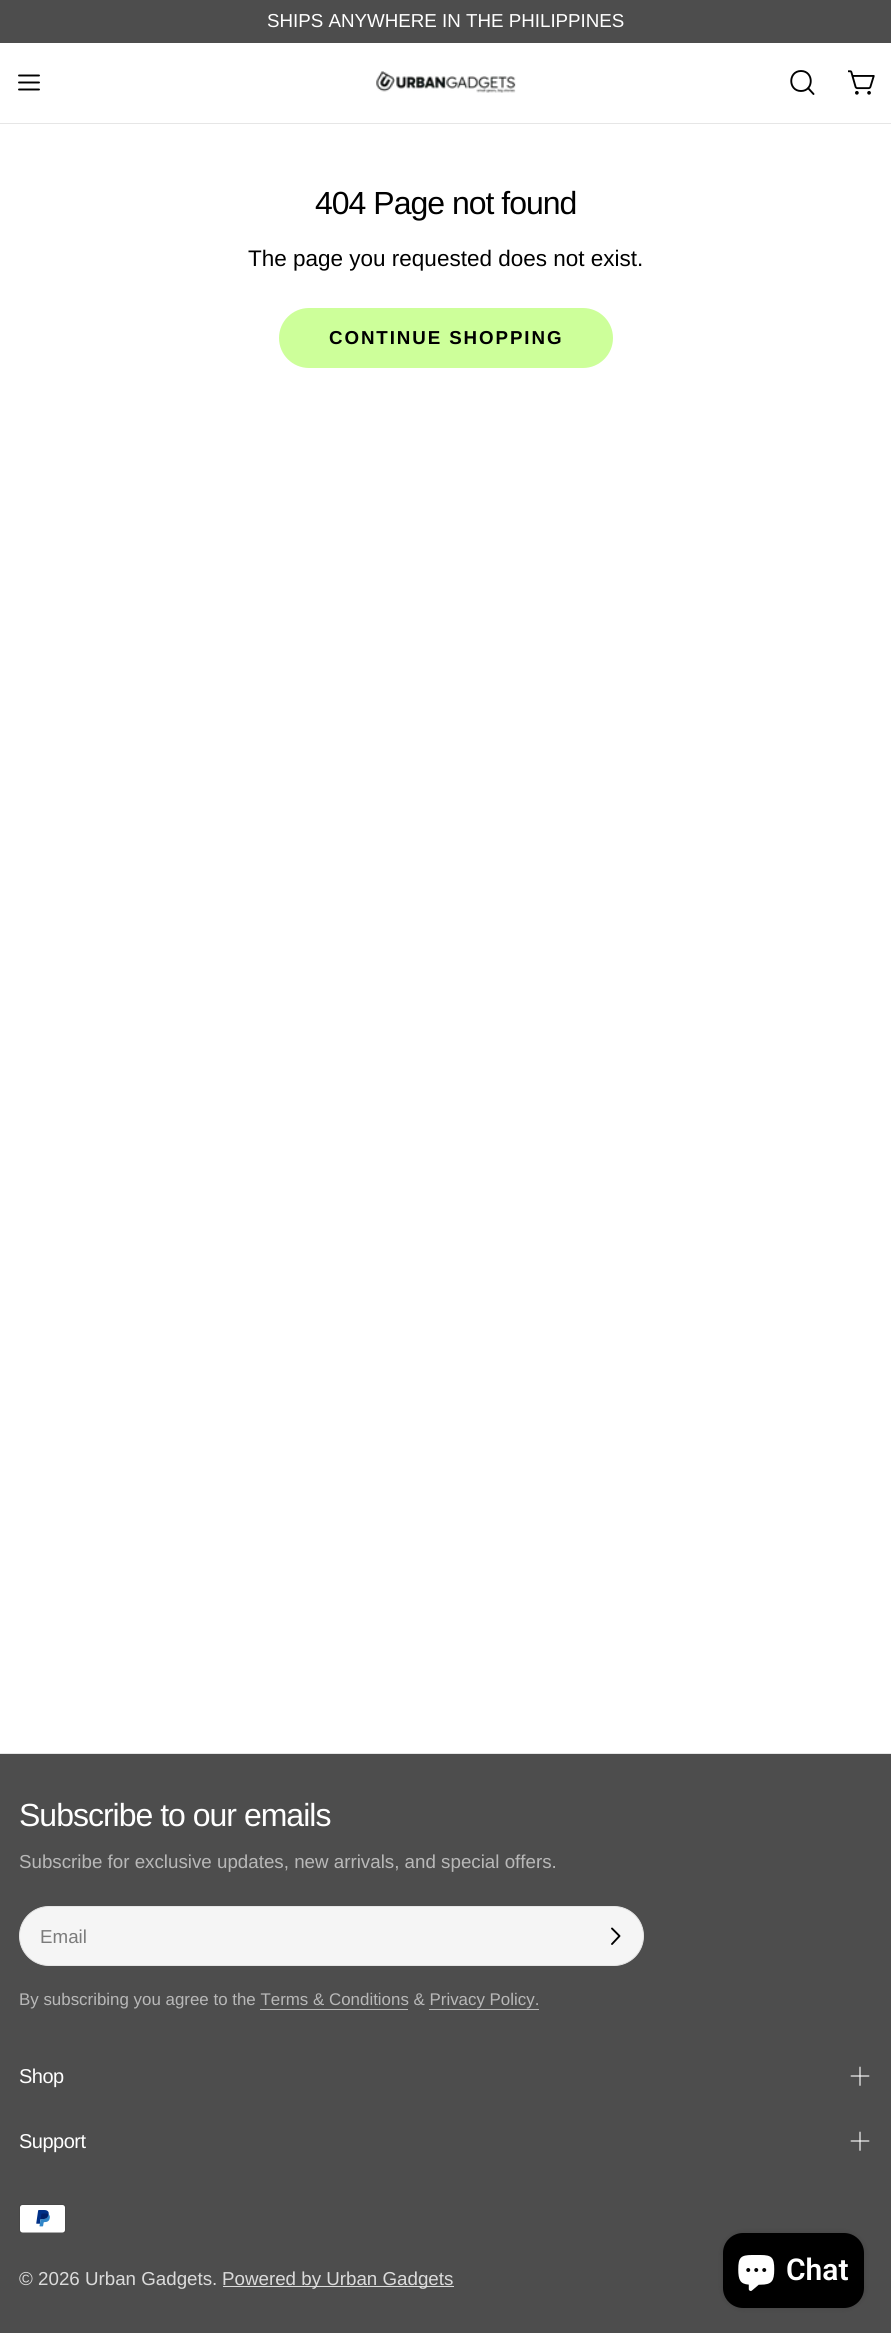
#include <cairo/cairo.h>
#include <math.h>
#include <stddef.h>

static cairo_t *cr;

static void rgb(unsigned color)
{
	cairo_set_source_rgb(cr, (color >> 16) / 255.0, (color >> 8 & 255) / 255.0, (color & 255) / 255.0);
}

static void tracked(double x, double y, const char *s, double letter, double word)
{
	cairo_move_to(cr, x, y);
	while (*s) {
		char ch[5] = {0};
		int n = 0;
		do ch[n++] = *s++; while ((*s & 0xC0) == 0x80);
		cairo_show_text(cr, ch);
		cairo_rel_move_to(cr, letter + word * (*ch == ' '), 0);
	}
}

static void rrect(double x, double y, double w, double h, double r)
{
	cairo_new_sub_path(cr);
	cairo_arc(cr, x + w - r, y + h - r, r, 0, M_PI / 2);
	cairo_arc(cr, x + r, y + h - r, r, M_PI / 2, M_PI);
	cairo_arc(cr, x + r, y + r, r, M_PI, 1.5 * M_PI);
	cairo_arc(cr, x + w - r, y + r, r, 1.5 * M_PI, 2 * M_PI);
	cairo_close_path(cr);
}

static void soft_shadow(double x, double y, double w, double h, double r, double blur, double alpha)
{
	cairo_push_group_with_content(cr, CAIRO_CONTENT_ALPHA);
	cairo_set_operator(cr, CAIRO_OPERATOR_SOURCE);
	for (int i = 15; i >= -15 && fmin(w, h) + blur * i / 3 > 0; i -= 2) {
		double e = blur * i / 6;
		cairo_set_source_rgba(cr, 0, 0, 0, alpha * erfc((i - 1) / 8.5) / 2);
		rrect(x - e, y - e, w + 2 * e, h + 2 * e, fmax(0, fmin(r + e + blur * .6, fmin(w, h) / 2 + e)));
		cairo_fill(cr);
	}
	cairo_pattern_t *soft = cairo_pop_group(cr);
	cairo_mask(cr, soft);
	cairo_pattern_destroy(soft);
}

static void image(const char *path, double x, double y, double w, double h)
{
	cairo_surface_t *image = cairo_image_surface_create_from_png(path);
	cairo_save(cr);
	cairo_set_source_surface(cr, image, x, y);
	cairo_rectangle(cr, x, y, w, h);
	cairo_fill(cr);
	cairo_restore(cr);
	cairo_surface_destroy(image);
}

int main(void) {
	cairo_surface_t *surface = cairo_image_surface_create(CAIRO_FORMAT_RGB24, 891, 2333);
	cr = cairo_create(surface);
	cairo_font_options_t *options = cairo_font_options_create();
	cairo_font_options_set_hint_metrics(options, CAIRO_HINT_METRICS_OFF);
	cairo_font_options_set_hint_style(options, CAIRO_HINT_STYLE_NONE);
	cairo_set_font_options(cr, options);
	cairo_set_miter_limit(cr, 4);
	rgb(0xffffff);
	cairo_paint(cr);
	rgb(0x4d4d4d);
	cairo_rectangle(cr, 0, 0, 891, 43);
	cairo_fill(cr);
	rgb(0xe6e6e6);
	cairo_rectangle(cr, 0, 123, 891, 1);
	cairo_fill(cr);
	cairo_new_path(cr);
	cairo_move_to(cr, 19, 82.5);
	cairo_line_to(cr, 39, 82.5);
	cairo_move_to(cr, 19, 75.5);
	cairo_line_to(cr, 39, 75.5);
	cairo_move_to(cr, 19, 89.5);
	cairo_line_to(cr, 39, 89.5);
	rgb(0x000000);
	cairo_set_line_width(cr, 1.9);
	cairo_set_line_cap(cr, CAIRO_LINE_CAP_ROUND);
	cairo_set_line_join(cr, CAIRO_LINE_JOIN_ROUND);
	cairo_stroke(cr);
	image("img/1.png", 376, 71, 140, 22);
	cairo_new_path(cr);
	cairo_move_to(cr, 801, 91);
	cairo_curve_to(cr, 814, 91, 814, 71, 801, 71);
	cairo_curve_to(cr, 788, 71, 788, 91, 801, 91);
	cairo_close_path(cr);
	cairo_move_to(cr, 808, 88);
	cairo_line_to(cr, 813.5, 94);
	cairo_stroke(cr);
	image("img/2.png", 848, 70, 27, 25);
	rgb(0xcdff9a);
	rrect(279, 308, 334, 60, 30);
	cairo_fill(cr);
	rgb(0x4d4d4d);
	cairo_rectangle(cr, 0, 1754, 891, 579);
	cairo_fill(cr);
	rgb(0xe6e6e6);
	cairo_rectangle(cr, 0, 1753, 891, 1);
	cairo_fill(cr);
	rgb(0xf5f5f5);
	rrect(19.5, 1906.5, 624, 59, 29.5);
	cairo_fill_preserve(cr);
	rgb(0xe6e6e6);
	cairo_set_line_width(cr, 1);
	cairo_set_line_cap(cr, CAIRO_LINE_CAP_BUTT);
	cairo_set_line_join(cr, CAIRO_LINE_JOIN_MITER);
	cairo_stroke(cr);
	cairo_new_path(cr);
	cairo_move_to(cr, 612, 1928.5);
	cairo_line_to(cr, 619.5, 1936);
	cairo_line_to(cr, 612, 1944);
	rgb(0x000000);
	cairo_set_line_width(cr, 1.9);
	cairo_set_line_cap(cr, CAIRO_LINE_CAP_ROUND);
	cairo_set_line_join(cr, CAIRO_LINE_JOIN_ROUND);
	cairo_stroke(cr);
	rgb(0xb8b8b8);
	cairo_rectangle(cr, 260, 2009, 148, 1);
	cairo_fill(cr);
	cairo_rectangle(cr, 429, 2009, 110, 1);
	cairo_fill(cr);
	cairo_new_path(cr);
	cairo_move_to(cr, 851.5, 2076);
	cairo_line_to(cr, 868.5, 2076);
	cairo_stroke(cr);
	cairo_new_path(cr);
	cairo_move_to(cr, 860, 2067.5);
	cairo_line_to(cr, 860, 2085);
	cairo_set_source_rgba(cr, 1, 1, 1, 0.6);
	cairo_stroke(cr);
	cairo_new_path(cr);
	cairo_move_to(cr, 851.5, 2141);
	cairo_line_to(cr, 868.5, 2141);
	rgb(0xb8b8b8);
	cairo_stroke(cr);
	cairo_new_path(cr);
	cairo_move_to(cr, 860, 2132.5);
	cairo_line_to(cr, 860, 2150);
	cairo_set_source_rgba(cr, 1, 1, 1, 0.6);
	cairo_stroke(cr);
	image("img/3.png", 19, 2204, 47, 29);
	rgb(0xdbdbdb);
	cairo_rectangle(cr, 223, 2286, 231, 1);
	cairo_fill(cr);
	rgb(0x000000);
	soft_shadow(723, 2233, 141, 75, 20, 3, 0.15);
	rgb(0x000000);
	rrect(723, 2233, 141, 75, 20);
	cairo_fill(cr);
	image("img/4.png", 738, 2255, 37, 36);
	cairo_select_font_face(cr, "Liberation Sans", CAIRO_FONT_SLANT_NORMAL, CAIRO_FONT_WEIGHT_NORMAL);
	cairo_set_font_size(cr, 18.75);
	rgb(0xffffff);
	cairo_move_to(cr, 267, 27);
	cairo_show_text(cr, "SHIPS ANYWHERE IN THE PHILIPPINES");
	cairo_set_font_size(cr, 32);
	rgb(0x000000);
	tracked(315, 214, "404 Page not found", -1, 0);
	cairo_set_font_size(cr, 22.5);
	cairo_move_to(cr, 248, 266);
	cairo_show_text(cr, "The page you requested does not exist.");
	cairo_select_font_face(cr, "Liberation Sans", CAIRO_FONT_SLANT_NORMAL, CAIRO_FONT_WEIGHT_BOLD);
	cairo_set_font_size(cr, 18.75);
	tracked(329, 344, "CONTINUE SHOPPING", 1.9, 0);
	cairo_select_font_face(cr, "Liberation Sans", CAIRO_FONT_SLANT_NORMAL, CAIRO_FONT_WEIGHT_NORMAL);
	cairo_set_font_size(cr, 32);
	rgb(0xffffff);
	tracked(19, 1826, "Subscribe to our emails", -1, 0);
	cairo_set_font_size(cr, 18.75);
	rgb(0xb8b8b8);
	cairo_move_to(cr, 19, 1868);
	cairo_show_text(cr, "Subscribe for exclusive updates, new arrivals, and special offers.");
	rgb(0x7b7b7b);
	cairo_move_to(cr, 40, 1943);
	cairo_show_text(cr, "Email");
	cairo_set_font_size(cr, 16.9);
	rgb(0xb8b8b8);
	cairo_move_to(cr, 19, 2005);
	cairo_show_text(cr, "By subscribing you agree to the Terms & Conditions & Privacy Policy.");
	cairo_set_font_size(cr, 20);
	rgb(0xffffff);
	tracked(19, 2083, "Shop", -0.5, 0);
	tracked(19, 2148, "Support", -0.5, 0);
	cairo_set_font_size(cr, 18.75);
	rgb(0xdbdbdb);
	cairo_move_to(cr, 19, 2285);
	cairo_show_text(cr, "© 2026 Urban Gadgets.");
	cairo_move_to(cr, 222, 2285);
	cairo_show_text(cr, "Powered by Urban Gadgets");
	cairo_select_font_face(cr, "Roboto SemiBold", CAIRO_FONT_SLANT_NORMAL, CAIRO_FONT_WEIGHT_NORMAL);
	cairo_set_font_size(cr, 30);
	rgb(0xffffff);
	cairo_move_to(cr, 786, 2280);
	cairo_show_text(cr, "Chat");
	cairo_surface_write_to_png(surface, "page.png");
	cairo_font_options_destroy(options);
	cairo_destroy(cr);
	cairo_surface_destroy(surface);
	return 0;
}
